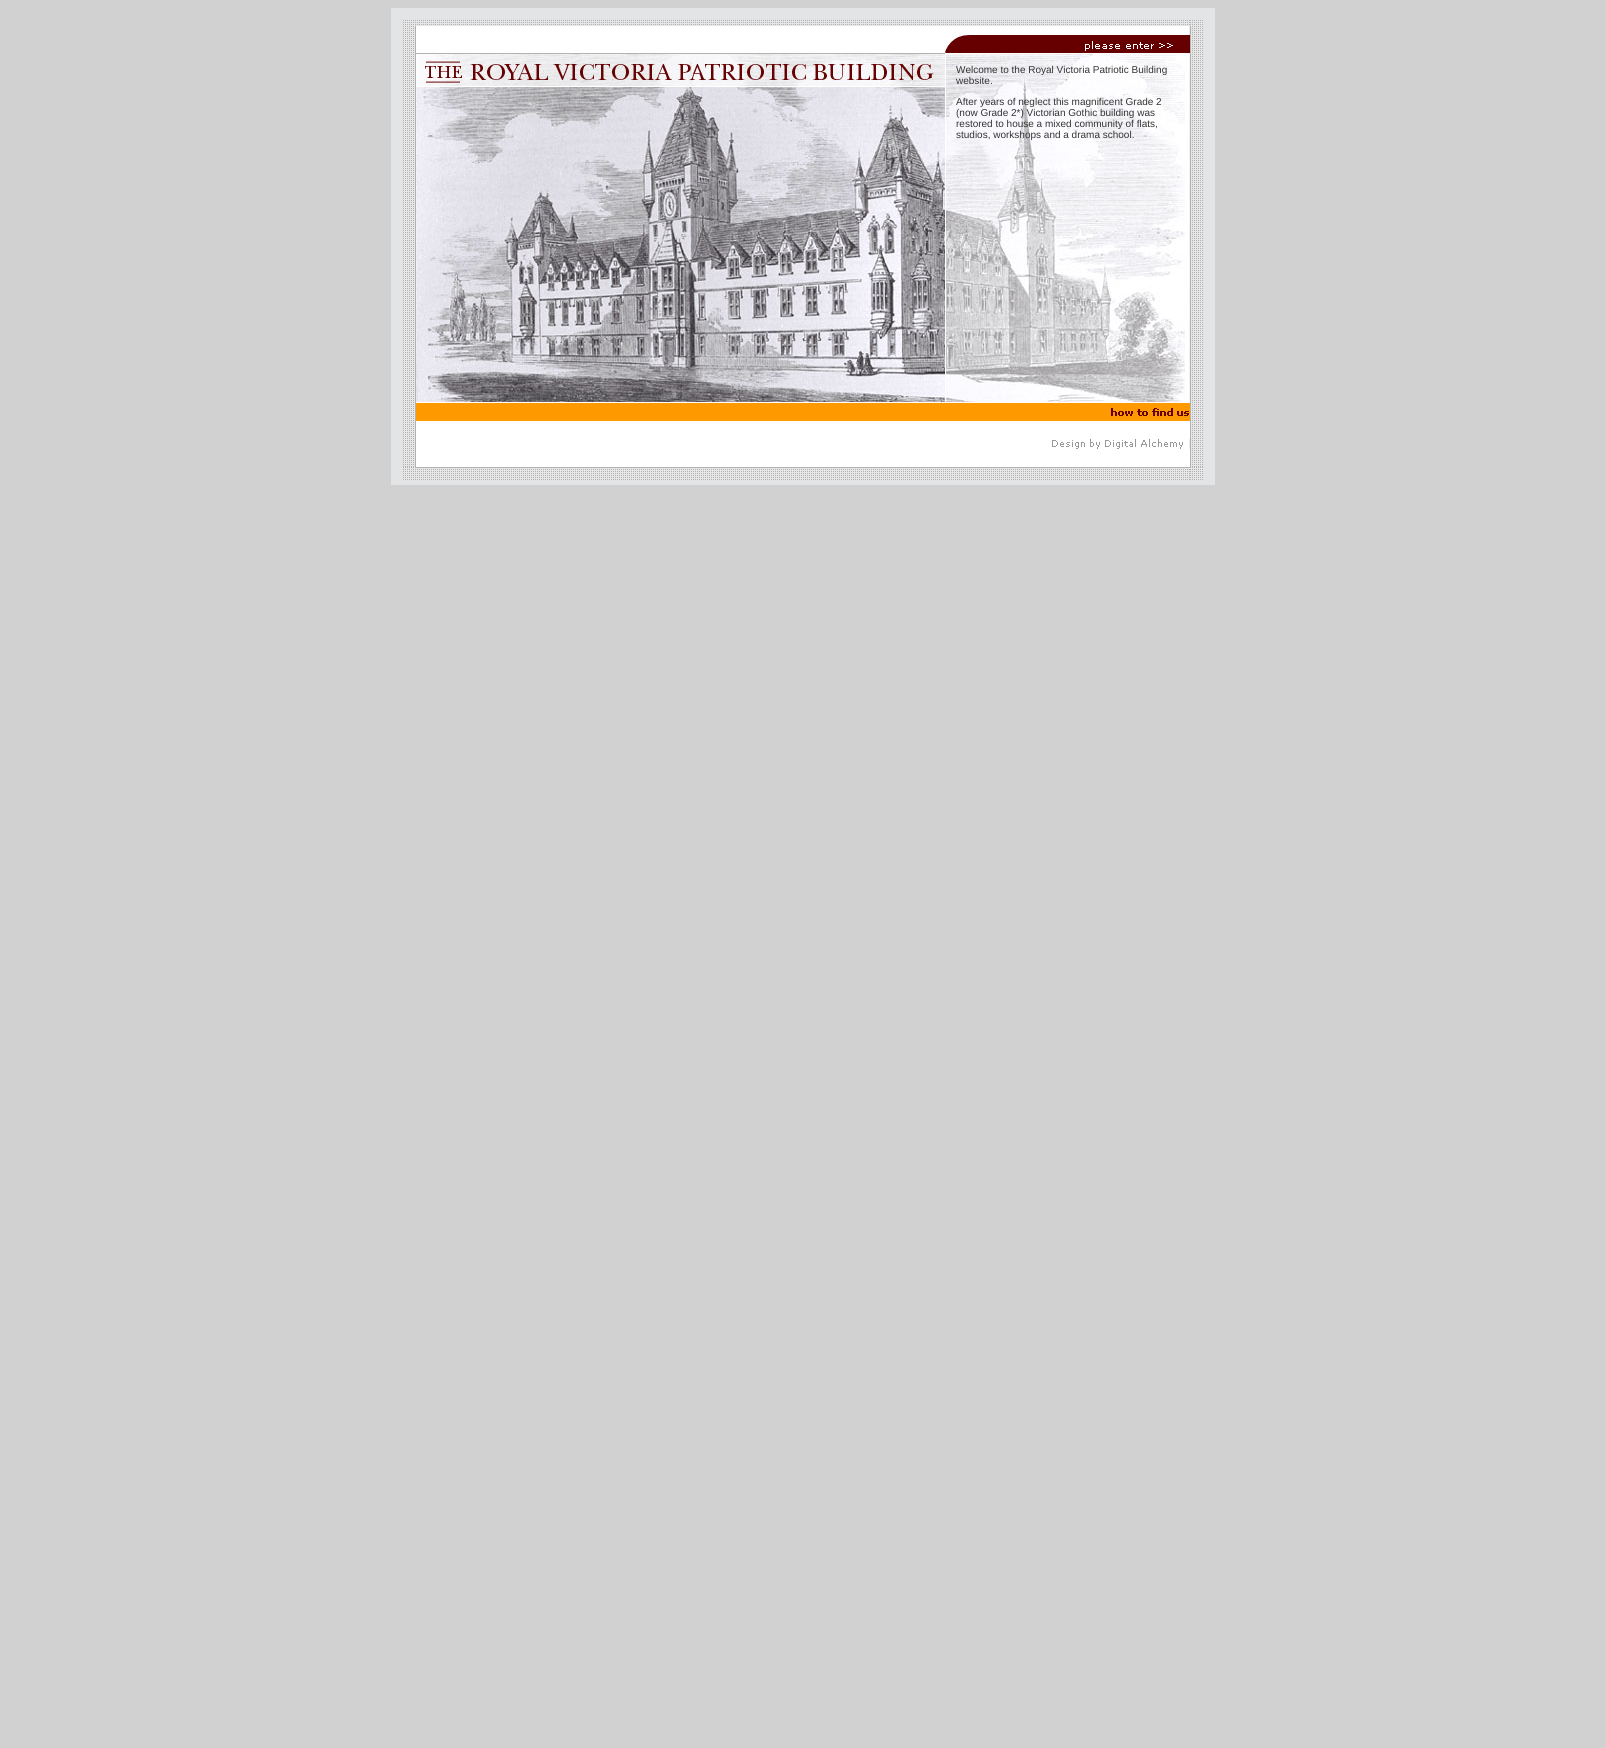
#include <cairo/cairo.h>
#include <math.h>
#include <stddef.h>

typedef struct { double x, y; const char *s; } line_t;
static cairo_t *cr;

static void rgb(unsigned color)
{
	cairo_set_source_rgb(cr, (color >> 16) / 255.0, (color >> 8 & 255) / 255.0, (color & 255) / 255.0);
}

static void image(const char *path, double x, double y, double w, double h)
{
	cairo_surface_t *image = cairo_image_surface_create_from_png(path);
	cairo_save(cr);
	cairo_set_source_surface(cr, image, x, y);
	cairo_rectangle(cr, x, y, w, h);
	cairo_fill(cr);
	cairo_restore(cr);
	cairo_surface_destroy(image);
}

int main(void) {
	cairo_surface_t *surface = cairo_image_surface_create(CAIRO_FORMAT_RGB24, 1606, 1748);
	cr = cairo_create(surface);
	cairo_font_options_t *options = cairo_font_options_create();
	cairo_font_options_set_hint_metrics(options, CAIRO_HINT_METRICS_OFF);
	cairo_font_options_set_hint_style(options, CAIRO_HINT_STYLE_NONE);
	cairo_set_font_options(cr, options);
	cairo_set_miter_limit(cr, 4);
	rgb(0xd1d1d1);
	cairo_paint(cr);
	image("img/1.png", 391, 8, 25, 18);
	image("img/2.png", 416, 8, 774, 18);
	image("img/3.png", 1190, 8, 25, 18);
	image("img/4.png", 391, 26, 25, 441);
	rgb(0xffffff);
	cairo_rectangle(cr, 416, 26, 774, 441);
	cairo_fill(cr);
	image("img/5.png", 944, 26, 246, 27);
	image("img/6.png", 1085, 41, 88, 10);
	image("img/7.png", 416, 87, 528, 316);
	image("img/8.png", 416, 53, 528, 33);
	image("img/9.png", 944, 53, 246, 350);
	rgb(0xff9900);
	cairo_rectangle(cr, 416, 403, 774, 18);
	cairo_fill(cr);
	image("img/10.png", 1111, 408, 78, 8);
	image("img/11.png", 1052, 439, 138, 10);
	image("img/12.png", 1190, 26, 25, 441);
	image("img/13.png", 391, 467, 25, 18);
	image("img/14.png", 416, 467, 774, 18);
	image("img/15.png", 1190, 467, 25, 18);
	cairo_select_font_face(cr, "Liberation Sans", CAIRO_FONT_SLANT_NORMAL, CAIRO_FONT_WEIGHT_NORMAL);
	cairo_set_font_size(cr, 10);
	rgb(0x333333);
	{
		static const line_t items[] = {
			{956, 73, "Welcome to the Royal Victoria Patriotic Building"},
			{956, 84, "website."},
			{956, 105, "After years of neglect this magnificent Grade 2"},
			{956, 116, "(now Grade 2*) Victorian Gothic building was"},
			{956, 127, "restored to house a mixed community of flats,"},
			{956, 138, "studios, workshops and a drama school."},
		};
		for (size_t i = 0; i < sizeof items / sizeof *items; i++) {
			cairo_move_to(cr, items[i].x, items[i].y);
			cairo_show_text(cr, items[i].s);
		}
	}
	cairo_surface_write_to_png(surface, "page.png");
	cairo_font_options_destroy(options);
	cairo_destroy(cr);
	cairo_surface_destroy(surface);
	return 0;
}
